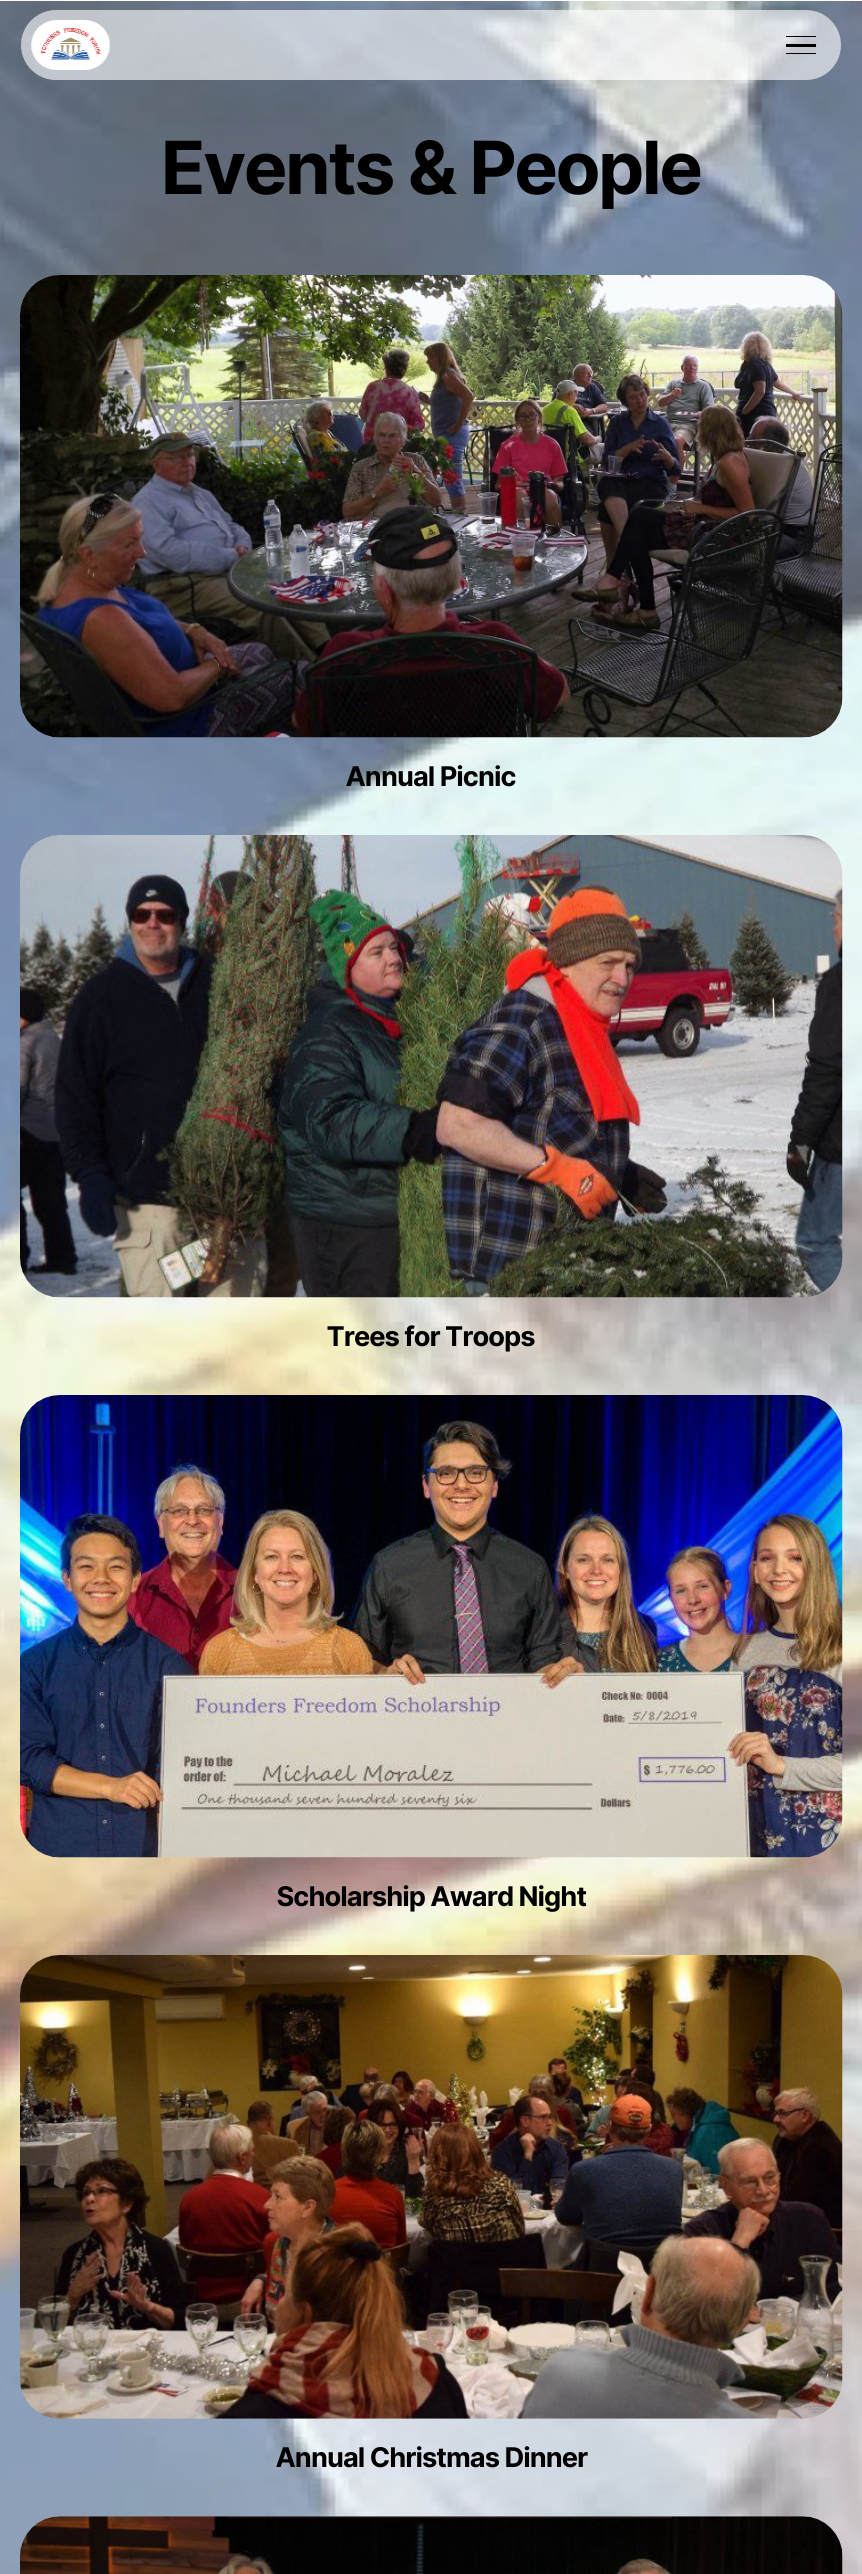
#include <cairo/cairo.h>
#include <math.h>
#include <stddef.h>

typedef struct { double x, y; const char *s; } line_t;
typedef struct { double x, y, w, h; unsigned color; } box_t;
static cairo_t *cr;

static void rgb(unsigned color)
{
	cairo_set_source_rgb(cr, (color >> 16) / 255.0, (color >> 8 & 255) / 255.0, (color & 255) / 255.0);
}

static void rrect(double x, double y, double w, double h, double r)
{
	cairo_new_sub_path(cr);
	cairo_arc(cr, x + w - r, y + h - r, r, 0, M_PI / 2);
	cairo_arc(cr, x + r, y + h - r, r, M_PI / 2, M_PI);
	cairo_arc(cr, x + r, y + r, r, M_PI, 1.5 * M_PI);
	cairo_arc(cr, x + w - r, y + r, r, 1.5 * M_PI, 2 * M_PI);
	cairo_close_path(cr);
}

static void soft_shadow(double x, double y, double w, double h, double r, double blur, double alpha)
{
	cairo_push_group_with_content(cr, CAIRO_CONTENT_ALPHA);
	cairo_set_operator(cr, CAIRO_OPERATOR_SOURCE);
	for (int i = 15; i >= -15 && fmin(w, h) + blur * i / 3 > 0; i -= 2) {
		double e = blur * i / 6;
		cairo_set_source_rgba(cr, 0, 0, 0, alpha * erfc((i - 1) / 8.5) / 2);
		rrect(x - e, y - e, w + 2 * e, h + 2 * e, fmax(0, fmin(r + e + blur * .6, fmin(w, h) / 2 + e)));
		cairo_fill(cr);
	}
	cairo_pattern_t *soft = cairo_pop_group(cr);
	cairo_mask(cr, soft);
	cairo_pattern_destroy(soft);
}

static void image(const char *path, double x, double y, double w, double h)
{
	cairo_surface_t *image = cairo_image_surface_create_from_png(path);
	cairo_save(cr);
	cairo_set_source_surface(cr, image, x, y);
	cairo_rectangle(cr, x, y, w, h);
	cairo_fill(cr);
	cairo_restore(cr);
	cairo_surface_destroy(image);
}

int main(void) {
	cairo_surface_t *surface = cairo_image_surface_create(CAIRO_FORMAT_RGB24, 862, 2574);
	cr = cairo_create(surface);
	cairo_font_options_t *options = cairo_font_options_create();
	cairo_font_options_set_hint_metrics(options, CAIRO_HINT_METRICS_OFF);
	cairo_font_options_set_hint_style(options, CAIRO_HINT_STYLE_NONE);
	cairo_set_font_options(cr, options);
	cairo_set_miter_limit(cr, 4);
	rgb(0xffffff);
	cairo_paint(cr);
	image("img/2.png", 0, 1, 862, 2573);
	cairo_save(cr);
	cairo_set_fill_rule(cr, CAIRO_FILL_RULE_EVEN_ODD);
	cairo_new_path(cr);
	cairo_move_to(cr, 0, 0);
	cairo_line_to(cr, 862, 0);
	cairo_line_to(cr, 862, 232);
	cairo_line_to(cr, 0, 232);
	cairo_close_path(cr);
	cairo_move_to(cr, 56, 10);
	cairo_line_to(cr, 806, 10);
	cairo_curve_to(cr, 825.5, 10, 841, 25.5, 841, 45);
	cairo_curve_to(cr, 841, 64.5, 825.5, 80, 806, 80);
	cairo_line_to(cr, 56, 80);
	cairo_curve_to(cr, 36.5, 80, 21, 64.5, 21, 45);
	cairo_curve_to(cr, 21, 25.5, 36.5, 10, 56, 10);
	cairo_close_path(cr);
	cairo_clip(cr);
	rgb(0x1b1f0a);
	soft_shadow(21, 48, 820, 70, 35, 37.5, 0.08);
	cairo_restore(cr);
	cairo_set_source_rgba(cr, 1, 1, 1, 0.6);
	rrect(21, 10, 820, 70, 35);
	cairo_fill(cr);
	image("img/1.png", 31, 20, 80, 50);
	{
		static const box_t items[] = {
			{786, 36, 30, 1, 0x000000},
			{786, 44, 30, 3, 0x000000},
			{786, 53, 30, 1, 0x000000},
		};
		for (size_t i = 0; i < sizeof items / sizeof *items; i++) {
			rgb(items[i].color);
			cairo_rectangle(cr, items[i].x, items[i].y, items[i].w, items[i].h);
			cairo_fill(cr);
		}
	}
	image("img/3.png", 20, 275, 823, 463);
	image("img/4.png", 20, 835, 823, 463);
	image("img/5.png", 20, 1395, 823, 463);
	image("img/6.png", 20, 1955, 823, 464);
	image("img/7.png", 20, 2516, 823, 58);
	cairo_select_font_face(cr, "Inter Tight", CAIRO_FONT_SLANT_NORMAL, CAIRO_FONT_WEIGHT_BOLD);
	cairo_set_font_size(cr, 73.25);
	cairo_move_to(cr, 162, 194);
	cairo_show_text(cr, "Events & People");
	cairo_set_font_size(cr, 27.1);
	{
		static const line_t items[] = {
			{346, 786, "Annual Picnic"},
			{327, 1346, "Trees for Troops"},
			{277, 1906, "Scholarship Award Night"},
			{276, 2467, "Annual Christmas Dinner"},
		};
		for (size_t i = 0; i < sizeof items / sizeof *items; i++) {
			cairo_move_to(cr, items[i].x, items[i].y);
			cairo_show_text(cr, items[i].s);
		}
	}
	cairo_surface_write_to_png(surface, "page.png");
	cairo_font_options_destroy(options);
	cairo_destroy(cr);
	cairo_surface_destroy(surface);
	return 0;
}
